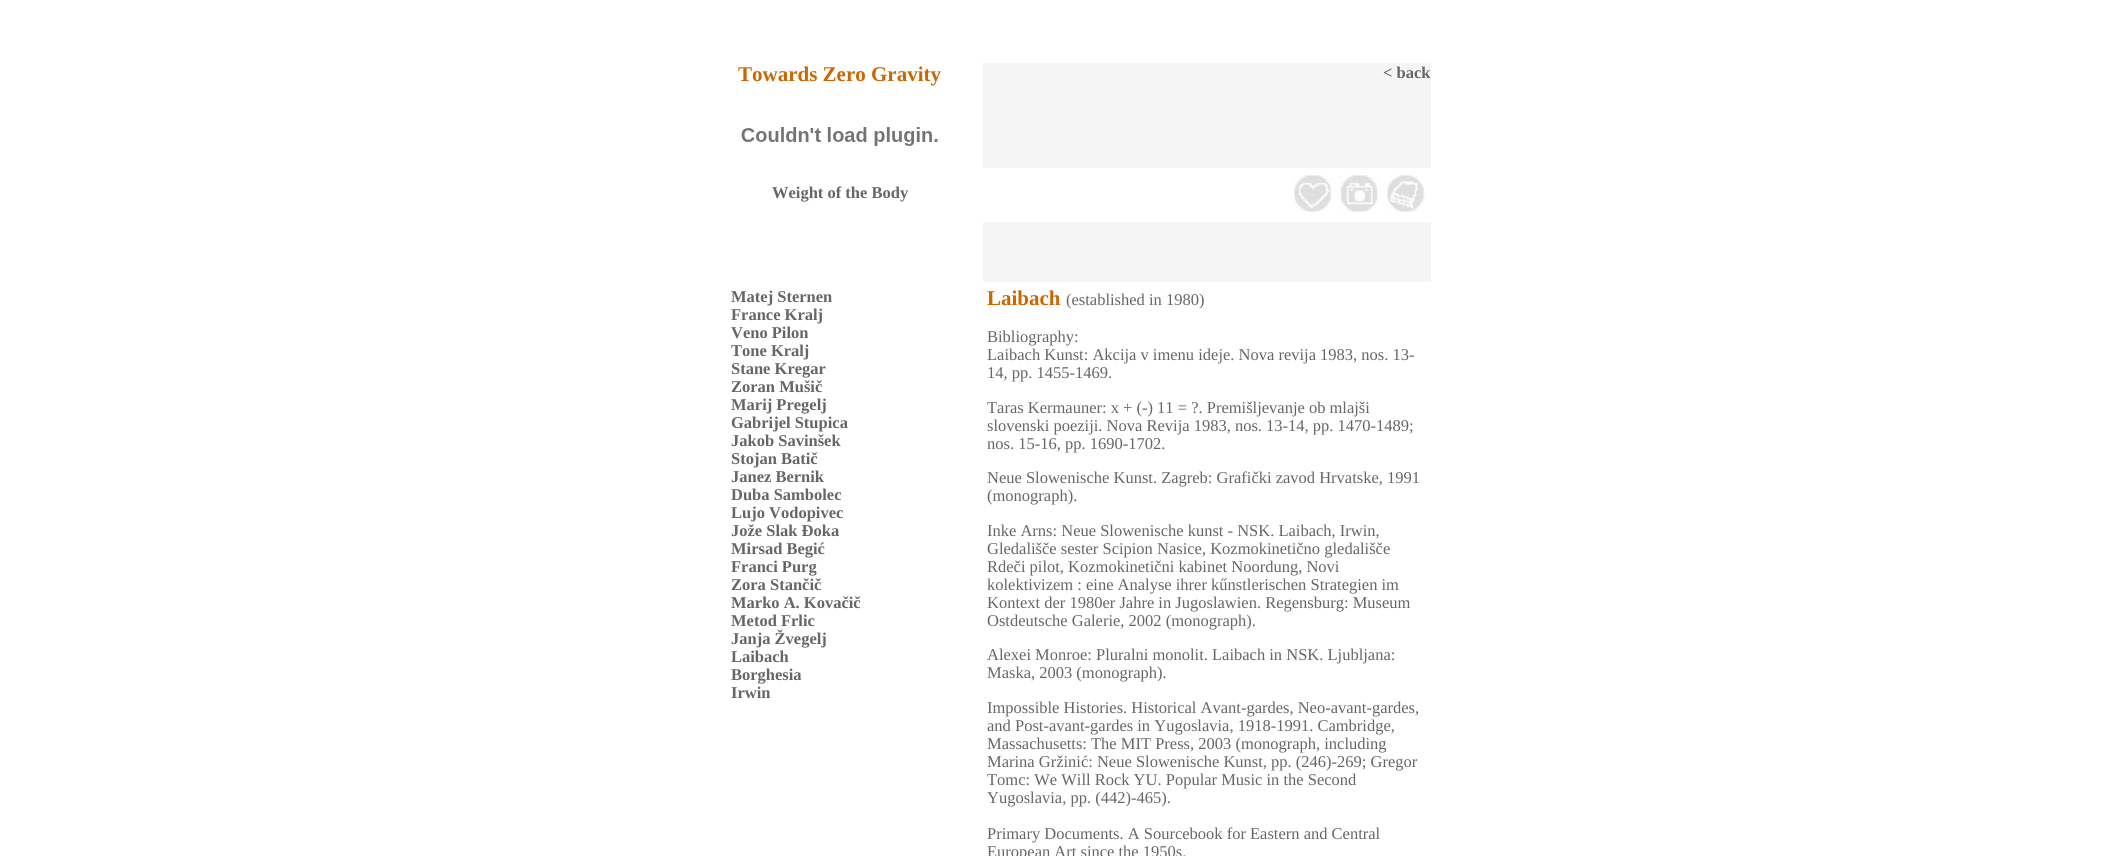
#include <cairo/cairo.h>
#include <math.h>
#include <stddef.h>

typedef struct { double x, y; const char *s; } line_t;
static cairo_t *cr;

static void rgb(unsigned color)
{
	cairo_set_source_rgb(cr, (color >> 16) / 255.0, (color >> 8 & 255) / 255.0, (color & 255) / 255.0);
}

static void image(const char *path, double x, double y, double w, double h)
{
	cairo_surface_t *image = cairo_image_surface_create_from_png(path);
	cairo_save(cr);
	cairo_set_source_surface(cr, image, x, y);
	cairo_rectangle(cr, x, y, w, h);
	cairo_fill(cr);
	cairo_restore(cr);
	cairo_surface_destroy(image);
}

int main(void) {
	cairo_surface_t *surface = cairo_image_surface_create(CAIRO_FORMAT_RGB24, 2126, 856);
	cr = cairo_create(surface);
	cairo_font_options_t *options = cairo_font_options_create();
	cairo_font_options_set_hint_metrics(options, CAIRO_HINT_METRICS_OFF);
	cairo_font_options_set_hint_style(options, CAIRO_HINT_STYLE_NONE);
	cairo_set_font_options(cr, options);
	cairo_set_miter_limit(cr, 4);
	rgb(0xffffff);
	cairo_paint(cr);
	image("img/1.png", 741, 127, 197, 19);
	rgb(0xf5f5f5);
	cairo_rectangle(cr, 983, 63, 448, 219);
	cairo_fill(cr);
	rgb(0xffffff);
	cairo_rectangle(cr, 983, 168, 448, 54);
	cairo_fill(cr);
	image("img/2.png", 1294, 175, 38, 37);
	image("img/3.png", 1338, 175, 40, 37);
	image("img/4.png", 1387, 175, 38, 37);
	cairo_select_font_face(cr, "Liberation Serif", CAIRO_FONT_SLANT_NORMAL, CAIRO_FONT_WEIGHT_BOLD);
	cairo_set_font_size(cr, 21);
	rgb(0xcc6600);
	cairo_move_to(cr, 738, 81);
	cairo_show_text(cr, "Towards Zero Gravity");
	cairo_set_font_size(cr, 16.5);
	rgb(0x666666);
	{
		static const line_t items[] = {
			{772, 198, "Weight of the Body"},
			{1383, 78, "< back"},
			{731, 302, "Matej Sternen"},
			{731, 320, "France Kralj"},
			{731, 338, "Veno Pilon"},
			{731, 356, "Tone Kralj"},
			{731, 374, "Stane Kregar"},
			{731, 392, "Zoran Mušič"},
			{731, 410, "Marij Pregelj"},
			{731, 428, "Gabrijel Stupica"},
			{731, 446, "Jakob Savinšek"},
			{731, 464, "Stojan Batič"},
			{731, 482, "Janez Bernik"},
			{731, 500, "Duba Sambolec"},
			{731, 518, "Lujo Vodopivec"},
			{731, 536, "Jože Slak Đoka"},
			{731, 554, "Mirsad Begić"},
			{731, 572, "Franci Purg"},
			{731, 590, "Zora Stančič"},
			{731, 608, "Marko A. Kovačič"},
			{731, 626, "Metod Frlic"},
			{731, 644, "Janja Žvegelj"},
			{731, 662, "Laibach"},
			{731, 680, "Borghesia"},
			{731, 698, "Irwin"},
		};
		for (size_t i = 0; i < sizeof items / sizeof *items; i++) {
			cairo_move_to(cr, items[i].x, items[i].y);
			cairo_show_text(cr, items[i].s);
		}
	}
	cairo_set_font_size(cr, 21);
	rgb(0xcc6600);
	cairo_move_to(cr, 987, 305);
	cairo_show_text(cr, "Laibach");
	cairo_select_font_face(cr, "Liberation Serif", CAIRO_FONT_SLANT_NORMAL, CAIRO_FONT_WEIGHT_NORMAL);
	cairo_set_font_size(cr, 16.5);
	rgb(0x666666);
	{
		static const line_t items[] = {
			{1066, 305, "(established in 1980)"},
			{987, 342, "Bibliography:"},
			{987, 360, "Laibach Kunst: Akcija v imenu ideje. Nova revija 1983, nos. 13-"},
			{987, 378, "14, pp. 1455-1469."},
			{987, 413, "Taras Kermauner: x + (-) 11 = ?. Premišljevanje ob mlajši"},
			{987, 431, "slovenski poeziji. Nova Revija 1983, nos. 13-14, pp. 1470-1489;"},
			{987, 449, "nos. 15-16, pp. 1690-1702."},
			{987, 483, "Neue Slowenische Kunst. Zagreb: Grafički zavod Hrvatske, 1991"},
			{987, 501, "(monograph)."},
			{987, 536, "Inke Arns: Neue Slowenische kunst - NSK. Laibach, Irwin,"},
			{987, 554, "Gledališče sester Scipion Nasice, Kozmokinetično gledališče"},
			{987, 572, "Rdeči pilot, Kozmokinetični kabinet Noordung, Novi"},
			{987, 590, "kolektivizem : eine Analyse ihrer kűnstlerischen Strategien im"},
			{987, 608, "Kontext der 1980er Jahre in Jugoslawien. Regensburg: Museum"},
			{987, 626, "Ostdeutsche Galerie, 2002 (monograph)."},
			{987, 660, "Alexei Monroe: Pluralni monolit. Laibach in NSK. Ljubljana:"},
			{987, 678, "Maska, 2003 (monograph)."},
			{987, 713, "Impossible Histories. Historical Avant-gardes, Neo-avant-gardes,"},
			{987, 731, "and Post-avant-gardes in Yugoslavia, 1918-1991. Cambridge,"},
			{987, 749, "Massachusetts: The MIT Press, 2003 (monograph, including"},
			{987, 767, "Marina Gržinić: Neue Slowenische Kunst, pp. (246)-269; Gregor"},
			{987, 785, "Tomc: We Will Rock YU. Popular Music in the Second"},
			{987, 803, "Yugoslavia, pp. (442)-465)."},
			{987, 839, "Primary Documents. A Sourcebook for Eastern and Central"},
			{987, 857, "European Art since the 1950s."},
		};
		for (size_t i = 0; i < sizeof items / sizeof *items; i++) {
			cairo_move_to(cr, items[i].x, items[i].y);
			cairo_show_text(cr, items[i].s);
		}
	}
	cairo_surface_write_to_png(surface, "page.png");
	cairo_font_options_destroy(options);
	cairo_destroy(cr);
	cairo_surface_destroy(surface);
	return 0;
}
